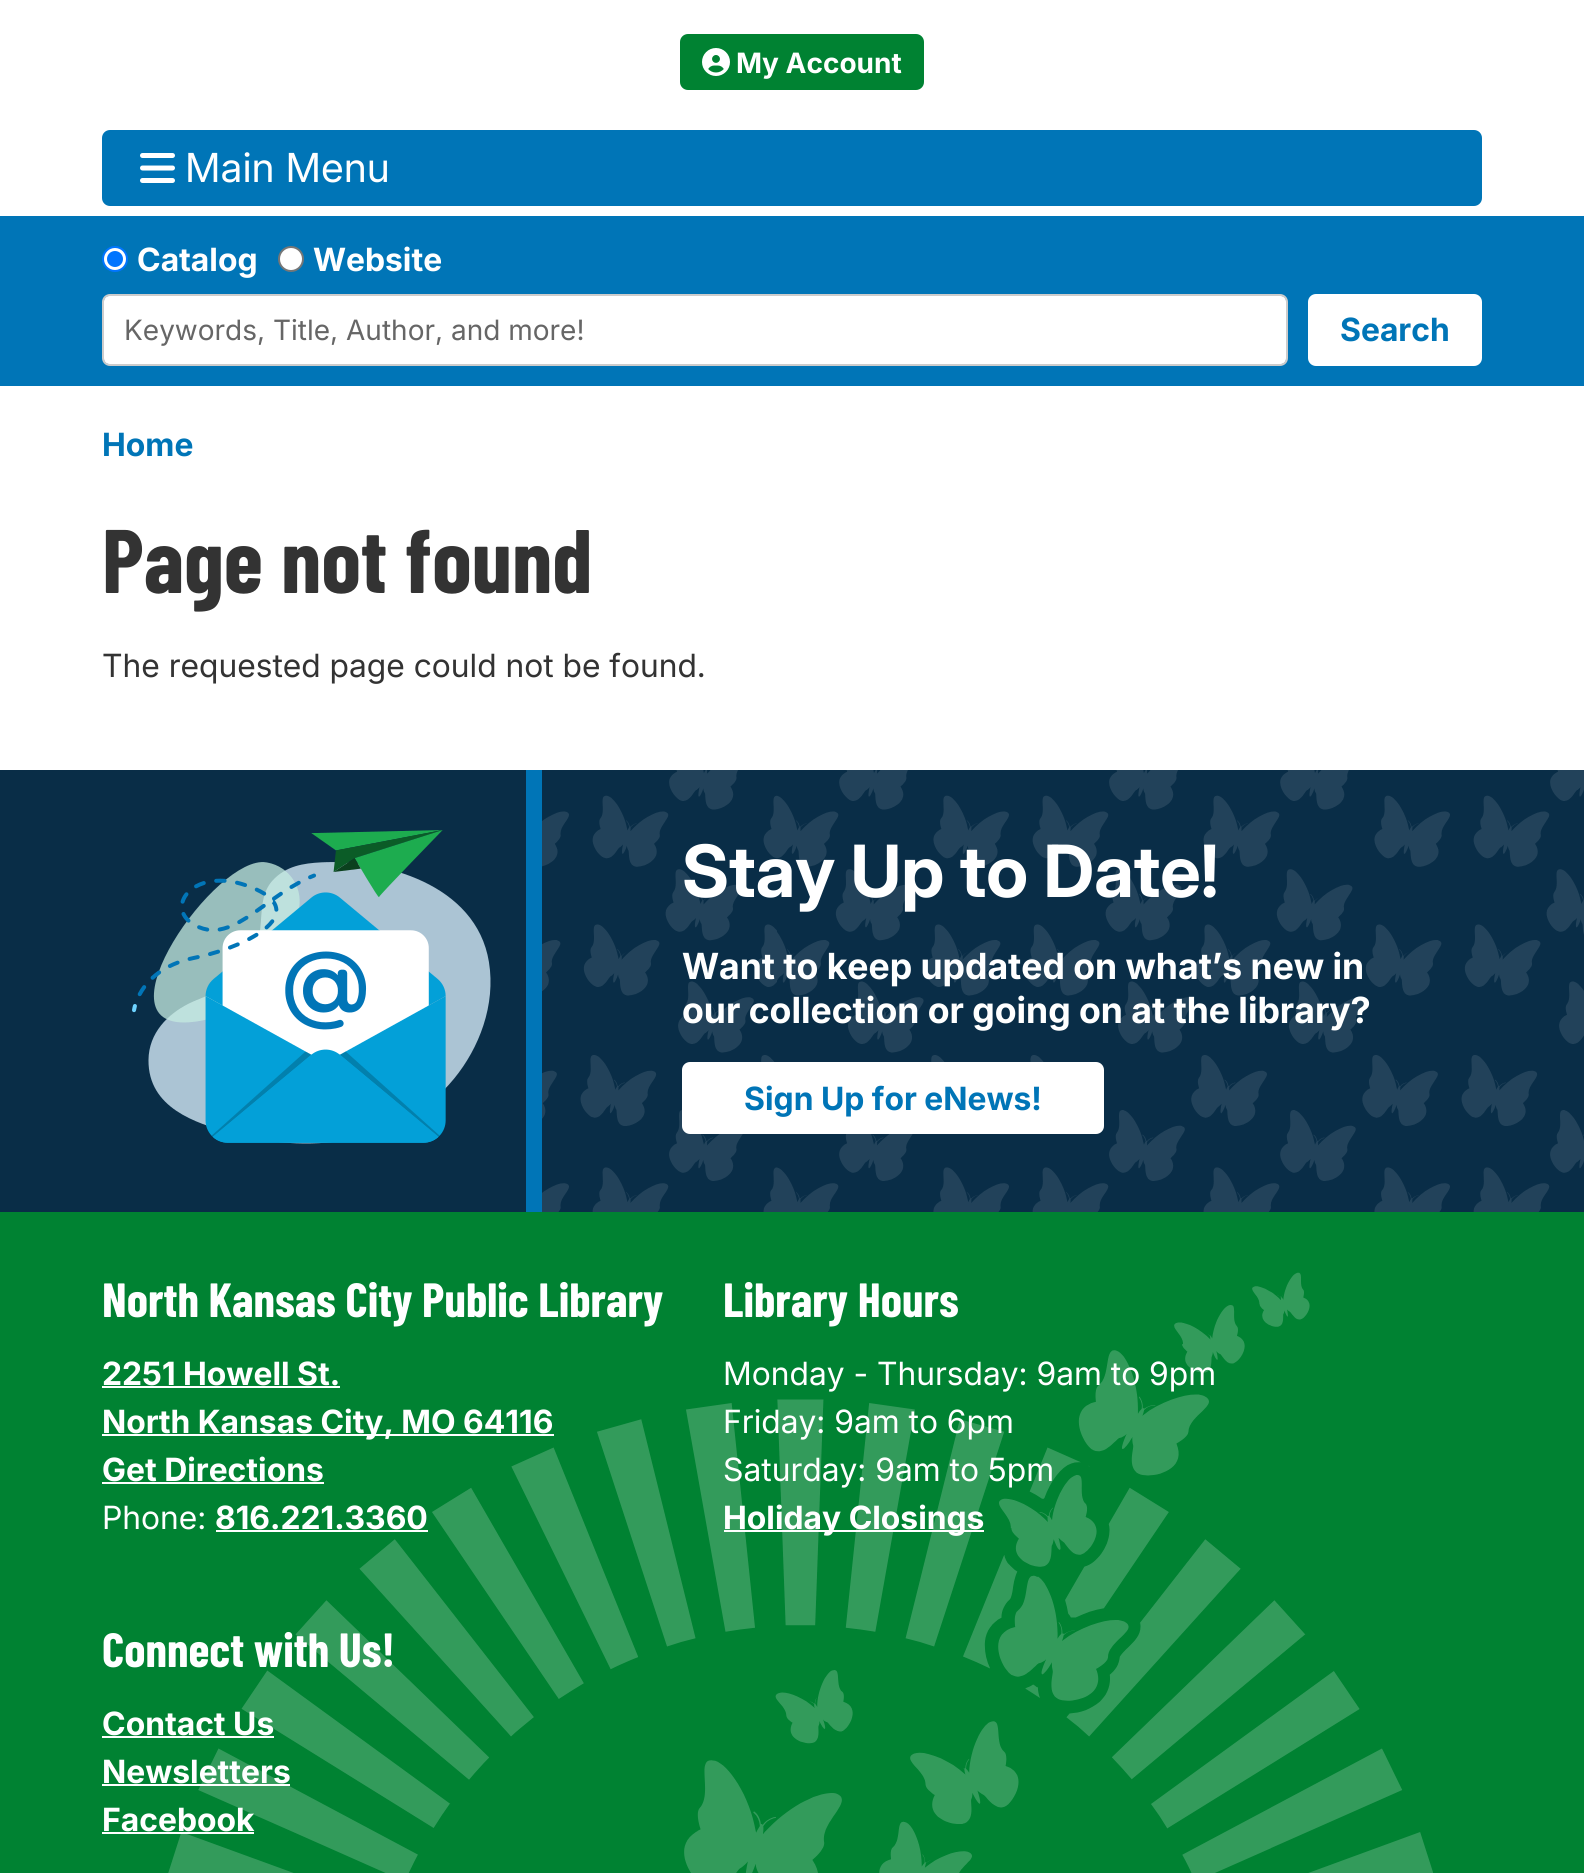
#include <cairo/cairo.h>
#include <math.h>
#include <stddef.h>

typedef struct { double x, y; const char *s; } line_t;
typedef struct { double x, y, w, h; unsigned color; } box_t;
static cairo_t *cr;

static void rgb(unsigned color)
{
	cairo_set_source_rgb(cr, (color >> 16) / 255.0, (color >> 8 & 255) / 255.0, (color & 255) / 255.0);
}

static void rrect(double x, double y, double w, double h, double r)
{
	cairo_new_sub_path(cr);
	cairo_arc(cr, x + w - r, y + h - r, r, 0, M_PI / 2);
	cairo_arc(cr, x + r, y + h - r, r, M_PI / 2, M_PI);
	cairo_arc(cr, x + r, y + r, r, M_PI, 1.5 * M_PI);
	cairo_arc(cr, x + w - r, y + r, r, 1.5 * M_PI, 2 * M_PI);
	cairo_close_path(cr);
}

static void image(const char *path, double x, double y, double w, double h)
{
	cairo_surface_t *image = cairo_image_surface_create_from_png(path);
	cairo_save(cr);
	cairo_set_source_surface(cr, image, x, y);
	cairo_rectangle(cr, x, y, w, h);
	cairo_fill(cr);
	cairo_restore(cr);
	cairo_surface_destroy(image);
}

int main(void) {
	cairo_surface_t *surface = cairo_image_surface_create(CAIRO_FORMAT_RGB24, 1584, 1873);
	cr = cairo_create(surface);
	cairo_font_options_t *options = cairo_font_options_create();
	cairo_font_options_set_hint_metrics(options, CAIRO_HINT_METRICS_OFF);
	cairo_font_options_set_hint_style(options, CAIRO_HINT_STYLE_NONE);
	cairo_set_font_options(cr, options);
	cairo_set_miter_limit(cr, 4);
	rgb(0xffffff);
	cairo_paint(cr);
	rgb(0x008232);
	rrect(681, 35, 242, 54, 7);
	cairo_fill_preserve(cr);
	cairo_stroke(cr);
	image("img/1.png", 702, 48, 28, 28);
	rgb(0x0075b7);
	rrect(102, 130, 1380, 76, 8);
	cairo_fill(cr);
	image("img/2.png", 140, 153, 35, 30);
	cairo_rectangle(cr, 0, 216, 1584, 170);
	cairo_fill(cr);
	rgb(0xffffff);
	cairo_arc(cr, 115, 259, 12, 0, 2 * M_PI);
	cairo_fill_preserve(cr);
	rgb(0x0075ff);
	cairo_stroke(cr);
	cairo_arc(cr, 115, 259, 8, 0, 2 * M_PI);
	cairo_fill(cr);
	rgb(0xffffff);
	cairo_arc(cr, 291, 259, 12, 0, 2 * M_PI);
	cairo_fill_preserve(cr);
	rgb(0x767676);
	cairo_stroke(cr);
	rgb(0xffffff);
	rrect(104, 296, 1182, 68, 5);
	cairo_fill(cr);
	rrect(103, 295, 1184, 70, 7);
	rgb(0xcccccc);
	cairo_stroke(cr);
	rgb(0xffffff);
	rrect(1309, 295, 172, 70, 7);
	cairo_fill_preserve(cr);
	cairo_stroke(cr);
	rgb(0x092d47);
	cairo_rectangle(cr, 542, 770, 1042, 442);
	cairo_fill(cr);
	image("img/3.png", 542, 770, 1042, 442);
	rgb(0x0075b7);
	cairo_rectangle(cr, 526, 770, 16, 442);
	cairo_fill(cr);
	rgb(0x092d47);
	cairo_rectangle(cr, 0, 770, 526, 442);
	cairo_fill(cr);
	image("img/4.png", 132, 830, 359, 314);
	rgb(0xffffff);
	rrect(683, 1063, 420, 70, 7);
	cairo_fill_preserve(cr);
	cairo_stroke(cr);
	rgb(0x008232);
	cairo_rectangle(cr, 0, 1212, 1584, 661);
	cairo_fill(cr);
	image("img/5.png", 168, 1272, 1265, 601);
	{
		static const box_t items[] = {
			{102, 1386, 238, 2, 0xffffff},
			{102, 1434, 452, 2, 0xffffff},
			{102, 1482, 222, 2, 0xffffff},
			{216, 1530, 212, 2, 0xffffff},
			{724, 1530, 260, 2, 0xffffff},
			{102, 1736, 172, 2, 0xffffff},
			{102, 1784, 188, 2, 0xffffff},
			{102, 1832, 152, 2, 0xffffff},
		};
		for (size_t i = 0; i < sizeof items / sizeof *items; i++) {
			rgb(items[i].color);
			cairo_rectangle(cr, items[i].x, items[i].y, items[i].w, items[i].h);
			cairo_fill(cr);
		}
	}
	cairo_select_font_face(cr, "Inter", CAIRO_FONT_SLANT_NORMAL, CAIRO_FONT_WEIGHT_BOLD);
	cairo_set_font_size(cr, 28);
	cairo_move_to(cr, 736, 73);
	cairo_show_text(cr, "My Account");
	cairo_select_font_face(cr, "Inter", CAIRO_FONT_SLANT_NORMAL, CAIRO_FONT_WEIGHT_NORMAL);
	cairo_set_font_size(cr, 40);
	cairo_move_to(cr, 185, 182);
	cairo_show_text(cr, "Main Menu");
	cairo_select_font_face(cr, "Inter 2", CAIRO_FONT_SLANT_NORMAL, CAIRO_FONT_WEIGHT_BOLD);
	cairo_set_font_size(cr, 32);
	cairo_move_to(cr, 137, 271);
	cairo_show_text(cr, "Catalog");
	cairo_move_to(cr, 313, 271);
	cairo_show_text(cr, "Website");
	cairo_select_font_face(cr, "Inter 2", CAIRO_FONT_SLANT_NORMAL, CAIRO_FONT_WEIGHT_NORMAL);
	cairo_set_font_size(cr, 28);
	rgb(0x666666);
	cairo_move_to(cr, 124, 340);
	cairo_show_text(cr, "Keywords, Title, Author, and more!");
	cairo_select_font_face(cr, "Inter 2", CAIRO_FONT_SLANT_NORMAL, CAIRO_FONT_WEIGHT_BOLD);
	cairo_set_font_size(cr, 32);
	rgb(0x0075b7);
	cairo_move_to(cr, 1340, 341);
	cairo_show_text(cr, "Search");
	cairo_move_to(cr, 102, 456);
	cairo_show_text(cr, "Home");
	cairo_select_font_face(cr, "Barlow Condensed", CAIRO_FONT_SLANT_NORMAL, CAIRO_FONT_WEIGHT_BOLD);
	cairo_set_font_size(cr, 90);
	rgb(0x333333);
	cairo_move_to(cr, 102, 593);
	cairo_show_text(cr, "Page not found");
	cairo_select_font_face(cr, "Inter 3", CAIRO_FONT_SLANT_NORMAL, CAIRO_FONT_WEIGHT_NORMAL);
	cairo_set_font_size(cr, 32);
	cairo_move_to(cr, 102, 677);
	cairo_show_text(cr, "The requested page could not be found.");
	cairo_select_font_face(cr, "Inter 3", CAIRO_FONT_SLANT_NORMAL, CAIRO_FONT_WEIGHT_BOLD);
	cairo_set_font_size(cr, 72);
	rgb(0xffffff);
	cairo_move_to(cr, 682, 897);
	cairo_show_text(cr, "Stay Up to Date!");
	cairo_select_font_face(cr, "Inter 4", CAIRO_FONT_SLANT_NORMAL, CAIRO_FONT_WEIGHT_BOLD);
	cairo_set_font_size(cr, 36);
	cairo_move_to(cr, 682, 979);
	cairo_show_text(cr, "Want to keep updated on what’s new in");
	cairo_move_to(cr, 682, 1023);
	cairo_show_text(cr, "our collection or going on at the library?");
	cairo_select_font_face(cr, "Inter 2", CAIRO_FONT_SLANT_NORMAL, CAIRO_FONT_WEIGHT_BOLD);
	cairo_set_font_size(cr, 32);
	rgb(0x0075b7);
	cairo_move_to(cr, 744, 1110);
	cairo_show_text(cr, "Sign Up for eNews!");
	cairo_select_font_face(cr, "Barlow Condensed", CAIRO_FONT_SLANT_NORMAL, CAIRO_FONT_WEIGHT_BOLD);
	cairo_set_font_size(cr, 48);
	rgb(0xffffff);
	cairo_move_to(cr, 102, 1317);
	cairo_show_text(cr, "North Kansas City Public Library");
	cairo_select_font_face(cr, "Inter 2", CAIRO_FONT_SLANT_NORMAL, CAIRO_FONT_WEIGHT_BOLD);
	cairo_set_font_size(cr, 32);
	{
		static const line_t items[] = {
			{102, 1385, "2251 Howell St."},
			{102, 1433, "North Kansas City, MO 64116"},
			{102, 1481, "Get Directions"},
		};
		for (size_t i = 0; i < sizeof items / sizeof *items; i++) {
			cairo_move_to(cr, items[i].x, items[i].y);
			cairo_show_text(cr, items[i].s);
		}
	}
	cairo_select_font_face(cr, "Inter 3", CAIRO_FONT_SLANT_NORMAL, CAIRO_FONT_WEIGHT_NORMAL);
	cairo_move_to(cr, 102, 1529);
	cairo_show_text(cr, "Phone:");
	cairo_select_font_face(cr, "Inter 2", CAIRO_FONT_SLANT_NORMAL, CAIRO_FONT_WEIGHT_BOLD);
	cairo_move_to(cr, 215, 1529);
	cairo_show_text(cr, "816.221.3360");
	cairo_select_font_face(cr, "Barlow Condensed", CAIRO_FONT_SLANT_NORMAL, CAIRO_FONT_WEIGHT_BOLD);
	cairo_set_font_size(cr, 48);
	cairo_move_to(cr, 723, 1317);
	cairo_show_text(cr, "Library Hours");
	cairo_select_font_face(cr, "Inter 3", CAIRO_FONT_SLANT_NORMAL, CAIRO_FONT_WEIGHT_NORMAL);
	cairo_set_font_size(cr, 32);
	{
		static const line_t items[] = {
			{723, 1385, "Monday - Thursday: 9am to 9pm"},
			{723, 1433, "Friday: 9am to 6pm"},
			{723, 1481, "Saturday: 9am to 5pm"},
		};
		for (size_t i = 0; i < sizeof items / sizeof *items; i++) {
			cairo_move_to(cr, items[i].x, items[i].y);
			cairo_show_text(cr, items[i].s);
		}
	}
	cairo_select_font_face(cr, "Inter 2", CAIRO_FONT_SLANT_NORMAL, CAIRO_FONT_WEIGHT_BOLD);
	cairo_move_to(cr, 723, 1529);
	cairo_show_text(cr, "Holiday Closings");
	cairo_select_font_face(cr, "Barlow Condensed", CAIRO_FONT_SLANT_NORMAL, CAIRO_FONT_WEIGHT_BOLD);
	cairo_set_font_size(cr, 48);
	cairo_move_to(cr, 102, 1667);
	cairo_show_text(cr, "Connect with Us!");
	cairo_select_font_face(cr, "Inter 2", CAIRO_FONT_SLANT_NORMAL, CAIRO_FONT_WEIGHT_BOLD);
	cairo_set_font_size(cr, 32);
	{
		static const line_t items[] = {
			{102, 1735, "Contact Us"},
			{102, 1783, "Newsletters"},
			{102, 1831, "Facebook"},
		};
		for (size_t i = 0; i < sizeof items / sizeof *items; i++) {
			cairo_move_to(cr, items[i].x, items[i].y);
			cairo_show_text(cr, items[i].s);
		}
	}
	cairo_surface_write_to_png(surface, "page.png");
	cairo_font_options_destroy(options);
	cairo_destroy(cr);
	cairo_surface_destroy(surface);
	return 0;
}
